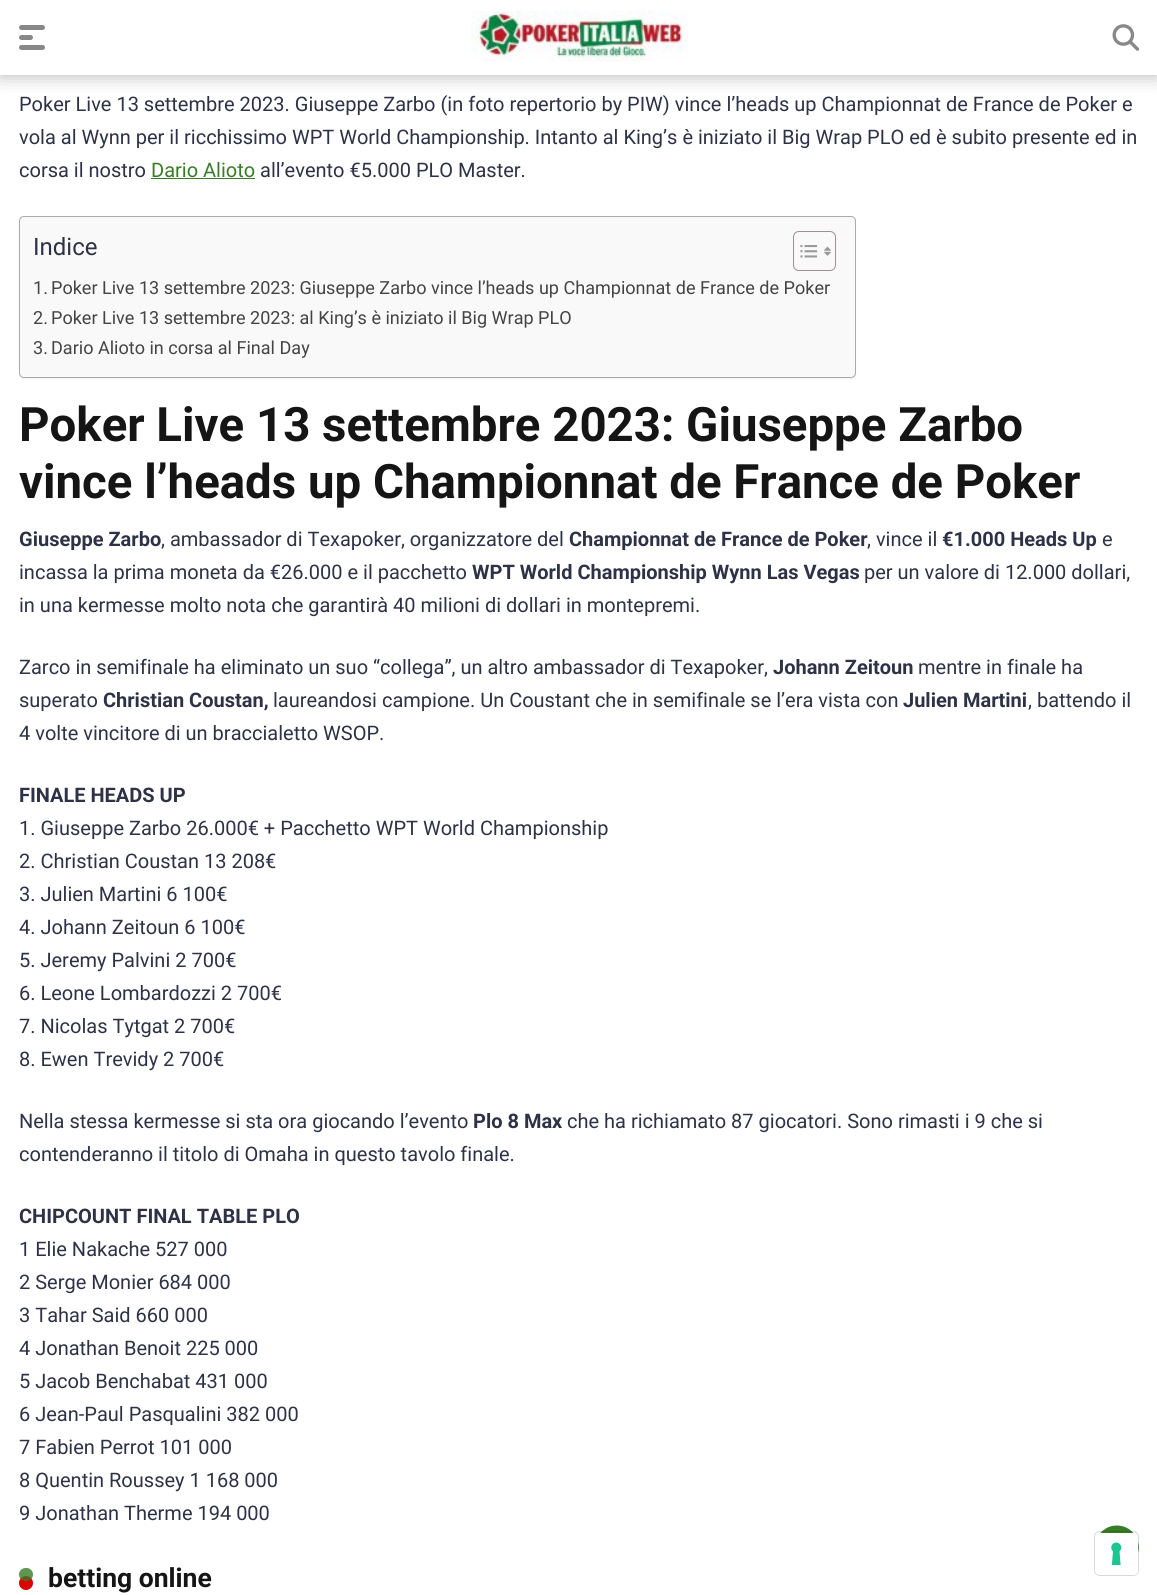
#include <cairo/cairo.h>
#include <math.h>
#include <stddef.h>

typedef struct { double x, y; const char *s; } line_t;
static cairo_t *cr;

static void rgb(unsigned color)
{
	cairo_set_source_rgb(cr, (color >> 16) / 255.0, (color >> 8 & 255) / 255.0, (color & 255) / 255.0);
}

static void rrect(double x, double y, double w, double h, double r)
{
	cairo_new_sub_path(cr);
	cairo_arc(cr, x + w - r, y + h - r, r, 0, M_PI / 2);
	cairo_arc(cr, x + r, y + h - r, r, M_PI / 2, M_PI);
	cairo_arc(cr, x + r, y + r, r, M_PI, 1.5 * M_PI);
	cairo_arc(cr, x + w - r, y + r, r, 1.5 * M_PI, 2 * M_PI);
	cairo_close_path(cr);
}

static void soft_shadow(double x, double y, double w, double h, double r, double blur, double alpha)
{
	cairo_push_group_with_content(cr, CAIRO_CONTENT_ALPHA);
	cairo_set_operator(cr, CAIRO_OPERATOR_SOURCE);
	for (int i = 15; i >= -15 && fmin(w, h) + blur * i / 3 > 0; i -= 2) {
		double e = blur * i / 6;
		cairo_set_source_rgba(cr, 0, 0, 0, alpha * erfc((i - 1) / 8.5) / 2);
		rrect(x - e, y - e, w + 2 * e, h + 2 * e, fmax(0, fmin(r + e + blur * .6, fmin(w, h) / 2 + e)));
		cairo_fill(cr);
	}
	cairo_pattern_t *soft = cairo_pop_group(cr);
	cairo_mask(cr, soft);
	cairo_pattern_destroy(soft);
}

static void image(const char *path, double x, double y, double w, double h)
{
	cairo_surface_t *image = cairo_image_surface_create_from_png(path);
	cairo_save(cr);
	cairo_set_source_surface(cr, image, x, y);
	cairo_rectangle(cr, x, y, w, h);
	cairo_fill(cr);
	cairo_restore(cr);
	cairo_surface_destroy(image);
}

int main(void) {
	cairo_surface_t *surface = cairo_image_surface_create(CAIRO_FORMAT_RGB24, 1157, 1595);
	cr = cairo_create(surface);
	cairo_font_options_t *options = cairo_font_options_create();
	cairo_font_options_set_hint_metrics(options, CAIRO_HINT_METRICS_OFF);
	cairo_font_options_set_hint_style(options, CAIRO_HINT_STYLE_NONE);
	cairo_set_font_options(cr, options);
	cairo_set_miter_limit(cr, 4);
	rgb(0xffffff);
	cairo_paint(cr);
	rgb(0x000000);
	soft_shadow(0, 0, 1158, 75, 0, 9.5, 0.3);
	rgb(0xffffff);
	cairo_rectangle(cr, 0, 0, 1157, 75);
	cairo_fill(cr);
	rgb(0x888888);
	rrect(19, 25, 26, 5, 2.5);
	cairo_fill(cr);
	rrect(19, 35, 14, 5, 2.5);
	cairo_fill(cr);
	rrect(19, 45, 26, 5, 2.5);
	cairo_fill(cr);
	image("img/1.png", 471, 11, 217, 51);
	image("img/2.png", 1112, 24, 28, 27);
	rgb(0x397c26);
	cairo_rectangle(cr, 151, 178, 104, 1);
	cairo_fill(cr);
	rgb(0x000000);
	soft_shadow(19, 218, 837, 161, 5, 0.5, 0.05);
	rgb(0xf9f9f9);
	rrect(19.5, 216.5, 836, 161, 4.5);
	cairo_fill_preserve(cr);
	rgb(0xaaaaaa);
	cairo_set_line_width(cr, 1);
	cairo_stroke(cr);
	rrect(793.5, 231.5, 42, 39, 5.5);
	rgb(0x999191);
	cairo_stroke(cr);
	image("img/3.png", 800, 245, 18, 13);
	image("img/4.png", 824, 246, 7, 10);
	rgb(0xdd0000);
	cairo_arc(cr, 26, 1583, 7, 0, 2 * M_PI);
	cairo_fill(cr);
	cairo_set_source_rgba(cr, 0.224, 0.486, 0.149, 0.8);
	rrect(19, 1568, 14, 13, 6.5);
	cairo_fill(cr);
	image("img/5.png", 1099, 1525, 40, 28);
	rrect(1094.5, 1531.5, 44, 44, 5.5);
	cairo_set_source_rgba(cr, 0, 0, 0, 0.15);
	cairo_stroke(cr);
	rgb(0xffffff);
	rrect(1095, 1533, 43, 42, 5);
	cairo_fill(cr);
	image("img/6.png", 1111, 1542, 11, 23);
	cairo_select_font_face(cr, "Roboto", CAIRO_FONT_SLANT_NORMAL, CAIRO_FONT_WEIGHT_NORMAL);
	cairo_set_font_size(cr, 20);
	rgb(0x2e3246);
	{
		static const line_t items[] = {
			{19, 111, "Poker Live 13 settembre 2023. Giuseppe Zarbo (in foto repertorio by PIW) vince l’heads up Championnat de France de Poker e"},
			{19, 144, "vola al Wynn per il ricchissimo WPT World Championship. Intanto al King’s è iniziato il Big Wrap PLO ed è subito presente ed in"},
			{19, 177, "corsa il nostro"},
		};
		for (size_t i = 0; i < sizeof items / sizeof *items; i++) {
			cairo_move_to(cr, items[i].x, items[i].y);
			cairo_show_text(cr, items[i].s);
		}
	}
	rgb(0x397c26);
	cairo_move_to(cr, 151, 177);
	cairo_show_text(cr, "Dario Alioto");
	rgb(0x2e3246);
	cairo_move_to(cr, 260, 177);
	cairo_show_text(cr, "all’evento €5.000 PLO Master.");
	cairo_set_font_size(cr, 24);
	cairo_move_to(cr, 33, 255);
	cairo_show_text(cr, "Indice");
	cairo_set_font_size(cr, 18.05);
	rgb(0x444444);
	{
		static const line_t items[] = {
			{33, 294, "1."},
			{51, 294, "Poker Live 13 settembre 2023: Giuseppe Zarbo vince l’heads up Championnat de France de Poker"},
			{33, 324, "2."},
			{51, 324, "Poker Live 13 settembre 2023: al King’s è iniziato il Big Wrap PLO"},
			{33, 354, "3."},
			{51, 354, "Dario Alioto in corsa al Final Day"},
		};
		for (size_t i = 0; i < sizeof items / sizeof *items; i++) {
			cairo_move_to(cr, items[i].x, items[i].y);
			cairo_show_text(cr, items[i].s);
		}
	}
	cairo_select_font_face(cr, "Roboto", CAIRO_FONT_SLANT_NORMAL, CAIRO_FONT_WEIGHT_BOLD);
	cairo_set_font_size(cr, 47.4);
	rgb(0x151515);
	cairo_move_to(cr, 19, 441);
	cairo_show_text(cr, "Poker Live 13 settembre 2023: Giuseppe Zarbo");
	cairo_move_to(cr, 19, 498);
	cairo_show_text(cr, "vince l’heads up Championnat de France de Poker");
	cairo_set_font_size(cr, 20);
	rgb(0x2e3246);
	cairo_move_to(cr, 19, 546);
	cairo_show_text(cr, "Giuseppe Zarbo");
	cairo_select_font_face(cr, "Roboto", CAIRO_FONT_SLANT_NORMAL, CAIRO_FONT_WEIGHT_NORMAL);
	cairo_move_to(cr, 161, 546);
	cairo_show_text(cr, ", ambassador di Texapoker, organizzatore del");
	cairo_select_font_face(cr, "Roboto", CAIRO_FONT_SLANT_NORMAL, CAIRO_FONT_WEIGHT_BOLD);
	cairo_move_to(cr, 569, 546);
	cairo_show_text(cr, "Championnat de France de Poker");
	cairo_select_font_face(cr, "Roboto", CAIRO_FONT_SLANT_NORMAL, CAIRO_FONT_WEIGHT_NORMAL);
	cairo_move_to(cr, 867, 546);
	cairo_show_text(cr, ", vince il");
	cairo_select_font_face(cr, "Roboto", CAIRO_FONT_SLANT_NORMAL, CAIRO_FONT_WEIGHT_BOLD);
	cairo_move_to(cr, 942, 546);
	cairo_show_text(cr, "€1.000 Heads Up");
	cairo_select_font_face(cr, "Roboto", CAIRO_FONT_SLANT_NORMAL, CAIRO_FONT_WEIGHT_NORMAL);
	cairo_move_to(cr, 1102, 546);
	cairo_show_text(cr, "e");
	cairo_move_to(cr, 19, 579);
	cairo_show_text(cr, "incassa la prima moneta da €26.000 e il pacchetto");
	cairo_select_font_face(cr, "Roboto", CAIRO_FONT_SLANT_NORMAL, CAIRO_FONT_WEIGHT_BOLD);
	cairo_move_to(cr, 472, 579);
	cairo_show_text(cr, "WPT World Championship Wynn Las Vegas");
	cairo_select_font_face(cr, "Roboto", CAIRO_FONT_SLANT_NORMAL, CAIRO_FONT_WEIGHT_NORMAL);
	{
		static const line_t items[] = {
			{864, 579, "per un valore di 12.000 dollari,"},
			{19, 612, "in una kermesse molto nota che garantirà 40 milioni di dollari in montepremi."},
			{19, 674, "Zarco in semifinale ha eliminato un suo “collega”, un altro ambassador di Texapoker,"},
		};
		for (size_t i = 0; i < sizeof items / sizeof *items; i++) {
			cairo_move_to(cr, items[i].x, items[i].y);
			cairo_show_text(cr, items[i].s);
		}
	}
	cairo_select_font_face(cr, "Roboto", CAIRO_FONT_SLANT_NORMAL, CAIRO_FONT_WEIGHT_BOLD);
	cairo_move_to(cr, 773, 674);
	cairo_show_text(cr, "Johann Zeitoun");
	cairo_select_font_face(cr, "Roboto", CAIRO_FONT_SLANT_NORMAL, CAIRO_FONT_WEIGHT_NORMAL);
	cairo_move_to(cr, 918, 674);
	cairo_show_text(cr, "mentre in finale ha");
	cairo_move_to(cr, 19, 707);
	cairo_show_text(cr, "superato");
	cairo_select_font_face(cr, "Roboto", CAIRO_FONT_SLANT_NORMAL, CAIRO_FONT_WEIGHT_BOLD);
	cairo_move_to(cr, 103, 707);
	cairo_show_text(cr, "Christian Coustan,");
	cairo_select_font_face(cr, "Roboto", CAIRO_FONT_SLANT_NORMAL, CAIRO_FONT_WEIGHT_NORMAL);
	cairo_move_to(cr, 273, 707);
	cairo_show_text(cr, "laureandosi campione. Un Coustant che in semifinale se l’era vista con");
	cairo_select_font_face(cr, "Roboto", CAIRO_FONT_SLANT_NORMAL, CAIRO_FONT_WEIGHT_BOLD);
	cairo_move_to(cr, 903, 707);
	cairo_show_text(cr, "Julien Martini");
	cairo_select_font_face(cr, "Roboto", CAIRO_FONT_SLANT_NORMAL, CAIRO_FONT_WEIGHT_NORMAL);
	cairo_move_to(cr, 1028, 707);
	cairo_show_text(cr, ", battendo il");
	cairo_move_to(cr, 19, 740);
	cairo_show_text(cr, "4 volte vincitore di un braccialetto WSOP.");
	cairo_select_font_face(cr, "Roboto", CAIRO_FONT_SLANT_NORMAL, CAIRO_FONT_WEIGHT_BOLD);
	cairo_move_to(cr, 19, 802);
	cairo_show_text(cr, "FINALE HEADS UP");
	cairo_select_font_face(cr, "Roboto", CAIRO_FONT_SLANT_NORMAL, CAIRO_FONT_WEIGHT_NORMAL);
	{
		static const line_t items[] = {
			{19, 835, "1. Giuseppe Zarbo 26.000€ + Pacchetto WPT World Championship"},
			{19, 868, "2. Christian Coustan 13 208€"},
			{19, 901, "3. Julien Martini 6 100€"},
			{19, 934, "4. Johann Zeitoun 6 100€"},
			{19, 967, "5. Jeremy Palvini 2 700€"},
			{19, 1000, "6. Leone Lombardozzi 2 700€"},
			{19, 1033, "7. Nicolas Tytgat 2 700€"},
			{19, 1066, "8. Ewen Trevidy 2 700€"},
			{19, 1128, "Nella stessa kermesse si sta ora giocando l’evento"},
		};
		for (size_t i = 0; i < sizeof items / sizeof *items; i++) {
			cairo_move_to(cr, items[i].x, items[i].y);
			cairo_show_text(cr, items[i].s);
		}
	}
	cairo_select_font_face(cr, "Roboto", CAIRO_FONT_SLANT_NORMAL, CAIRO_FONT_WEIGHT_BOLD);
	cairo_move_to(cr, 473, 1128);
	cairo_show_text(cr, "Plo 8 Max");
	cairo_select_font_face(cr, "Roboto", CAIRO_FONT_SLANT_NORMAL, CAIRO_FONT_WEIGHT_NORMAL);
	cairo_move_to(cr, 567, 1128);
	cairo_show_text(cr, "che ha richiamato 87 giocatori. Sono rimasti i 9 che si");
	cairo_move_to(cr, 19, 1161);
	cairo_show_text(cr, "contenderanno il titolo di Omaha in questo tavolo finale.");
	cairo_select_font_face(cr, "Roboto", CAIRO_FONT_SLANT_NORMAL, CAIRO_FONT_WEIGHT_BOLD);
	cairo_move_to(cr, 19, 1223);
	cairo_show_text(cr, "CHIPCOUNT FINAL TABLE PLO");
	cairo_select_font_face(cr, "Roboto", CAIRO_FONT_SLANT_NORMAL, CAIRO_FONT_WEIGHT_NORMAL);
	{
		static const line_t items[] = {
			{19, 1256, "1 Elie Nakache 527 000"},
			{19, 1289, "2 Serge Monier 684 000"},
			{19, 1322, "3 Tahar Said 660 000"},
			{19, 1355, "4 Jonathan Benoit 225 000"},
			{19, 1388, "5 Jacob Benchabat 431 000"},
			{19, 1421, "6 Jean-Paul Pasqualini 382 000"},
			{19, 1454, "7 Fabien Perrot 101 000"},
			{19, 1487, "8 Quentin Roussey 1 168 000"},
			{19, 1520, "9 Jonathan Therme 194 000"},
		};
		for (size_t i = 0; i < sizeof items / sizeof *items; i++) {
			cairo_move_to(cr, items[i].x, items[i].y);
			cairo_show_text(cr, items[i].s);
		}
	}
	cairo_select_font_face(cr, "Roboto", CAIRO_FONT_SLANT_NORMAL, CAIRO_FONT_WEIGHT_BOLD);
	cairo_set_font_size(cr, 26.5);
	rgb(0x151515);
	cairo_move_to(cr, 48, 1587);
	cairo_show_text(cr, "betting online");
	cairo_surface_write_to_png(surface, "page.png");
	cairo_font_options_destroy(options);
	cairo_destroy(cr);
	cairo_surface_destroy(surface);
	return 0;
}
